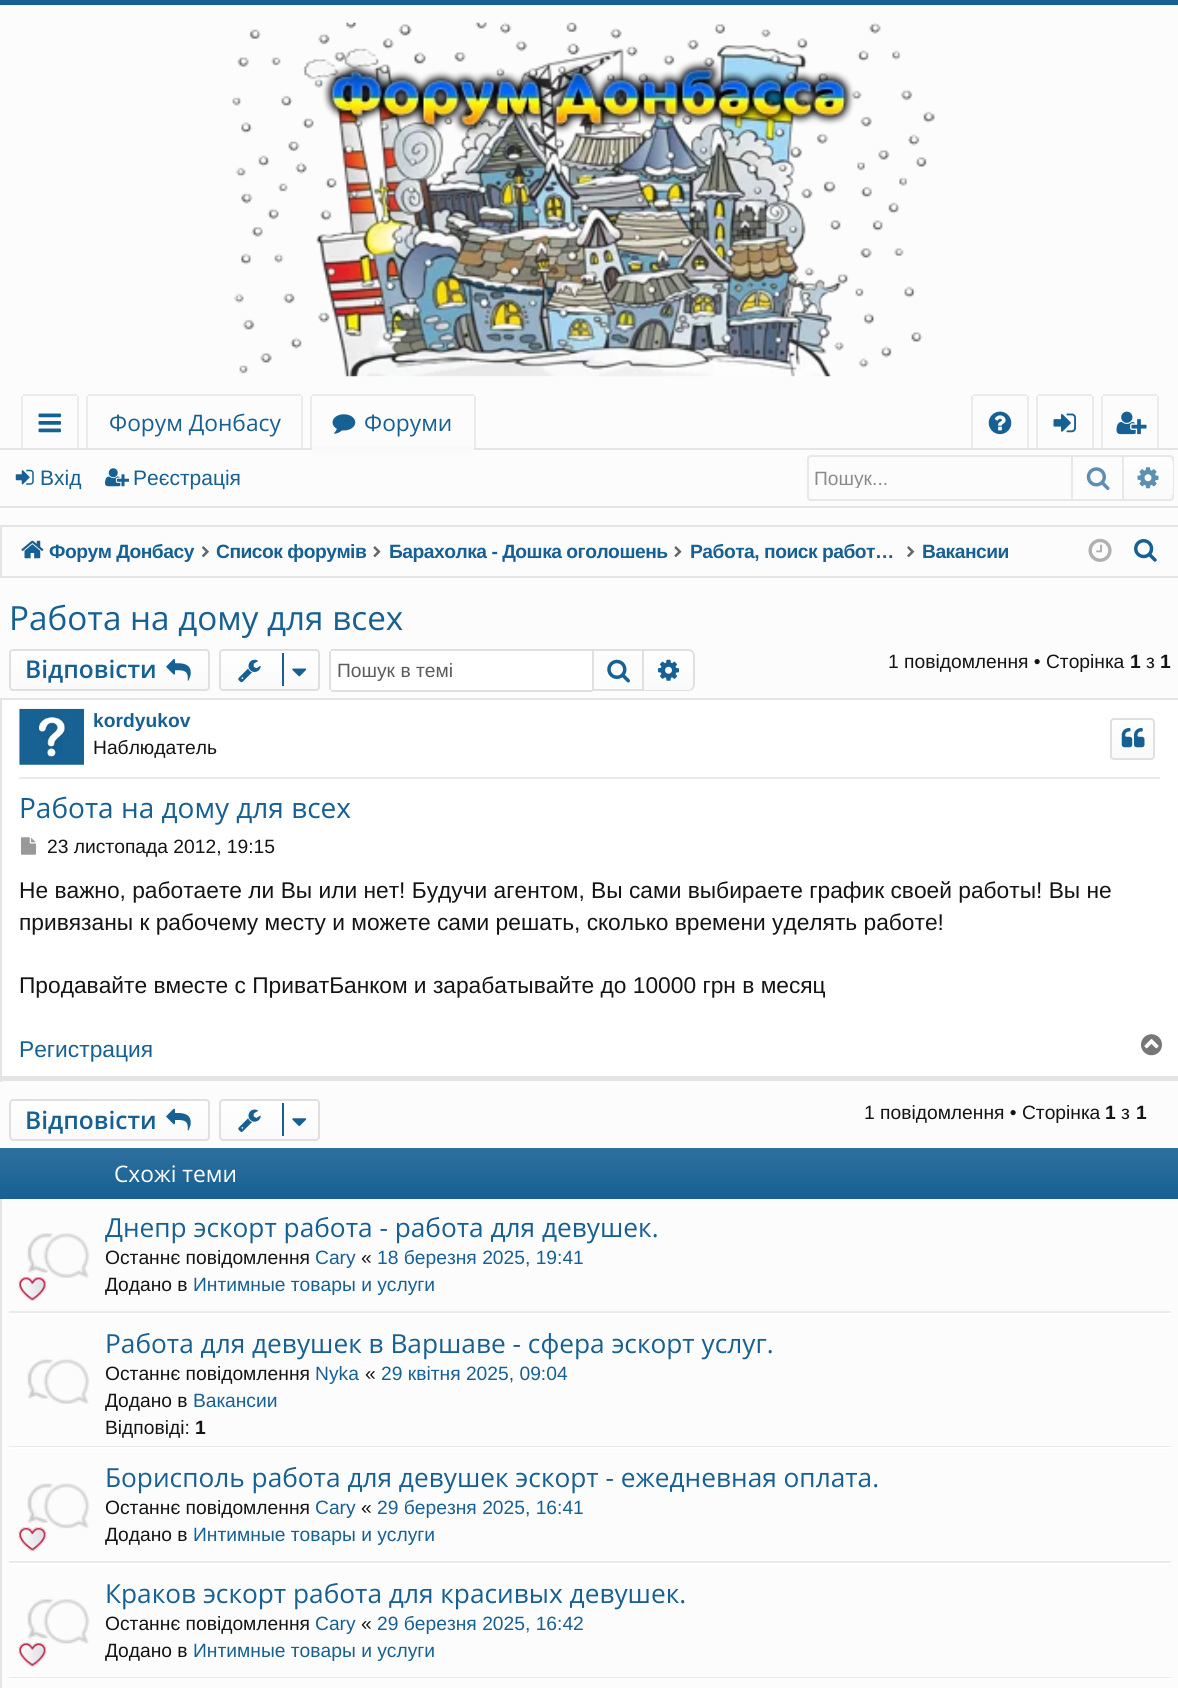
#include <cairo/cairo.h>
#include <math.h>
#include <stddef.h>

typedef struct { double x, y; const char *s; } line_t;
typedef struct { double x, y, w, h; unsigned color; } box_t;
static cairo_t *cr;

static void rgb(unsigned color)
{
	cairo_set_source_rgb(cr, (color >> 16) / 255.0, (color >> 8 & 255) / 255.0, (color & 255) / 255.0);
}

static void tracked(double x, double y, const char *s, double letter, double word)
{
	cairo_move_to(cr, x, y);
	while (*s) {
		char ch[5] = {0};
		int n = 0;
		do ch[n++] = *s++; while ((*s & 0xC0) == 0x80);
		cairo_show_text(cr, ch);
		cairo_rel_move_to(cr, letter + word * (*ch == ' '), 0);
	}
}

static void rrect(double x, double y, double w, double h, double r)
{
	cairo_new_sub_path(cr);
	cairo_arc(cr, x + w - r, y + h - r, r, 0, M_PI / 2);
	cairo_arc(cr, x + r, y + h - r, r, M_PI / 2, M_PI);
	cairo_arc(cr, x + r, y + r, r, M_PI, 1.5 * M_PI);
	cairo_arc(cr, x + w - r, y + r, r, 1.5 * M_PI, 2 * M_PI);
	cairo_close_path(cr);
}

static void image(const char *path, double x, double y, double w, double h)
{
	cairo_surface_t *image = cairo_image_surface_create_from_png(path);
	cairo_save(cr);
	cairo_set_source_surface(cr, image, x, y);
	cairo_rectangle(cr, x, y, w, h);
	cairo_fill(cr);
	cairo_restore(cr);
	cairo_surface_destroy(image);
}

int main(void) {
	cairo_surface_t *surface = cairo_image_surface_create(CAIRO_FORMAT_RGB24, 1178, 1688);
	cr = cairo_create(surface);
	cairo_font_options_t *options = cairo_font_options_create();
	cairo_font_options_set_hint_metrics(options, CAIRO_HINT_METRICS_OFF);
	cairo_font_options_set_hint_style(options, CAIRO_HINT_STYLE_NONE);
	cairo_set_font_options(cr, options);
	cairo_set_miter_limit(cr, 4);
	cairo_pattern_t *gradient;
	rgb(0xfcfcfc);
	cairo_paint(cr);
	rgb(0x176093);
	cairo_rectangle(cr, 0, 0, 1178, 5);
	cairo_fill(cr);
	image("img/1.png", 232, 22, 703, 355);
	{
		static const box_t items[] = {
			{23, 394, 54, 2, 0xebebeb},
			{77, 396, 2, 54, 0xebebeb},
			{21, 396, 2, 54, 0xebebeb},
		};
		for (size_t i = 0; i < sizeof items / sizeof *items; i++) {
			rgb(items[i].color);
			cairo_rectangle(cr, items[i].x, items[i].y, items[i].w, items[i].h);
			cairo_fill(cr);
		}
	}
	image("img/2.png", 38, 413, 23, 20);
	{
		static const box_t items[] = {
			{88, 394, 213, 2, 0xebebeb},
			{301, 396, 2, 54, 0xebebeb},
			{86, 396, 2, 54, 0xebebeb},
			{312, 394, 162, 2, 0xebebeb},
			{474, 396, 2, 54, 0xebebeb},
			{310, 396, 2, 54, 0xebebeb},
		};
		for (size_t i = 0; i < sizeof items / sizeof *items; i++) {
			rgb(items[i].color);
			cairo_rectangle(cr, items[i].x, items[i].y, items[i].w, items[i].h);
			cairo_fill(cr);
		}
	}
	image("img/3.png", 332, 414, 24, 20);
	{
		static const box_t items[] = {
			{1027, 396, 2, 54, 0xebebeb},
			{971, 396, 2, 54, 0xebebeb},
			{1092, 396, 2, 54, 0xebebeb},
			{1036, 396, 2, 54, 0xebebeb},
			{1157, 396, 2, 54, 0xebebeb},
			{1101, 396, 2, 54, 0xebebeb},
			{0, 448, 1178, 2, 0xe4e4e4},
		};
		for (size_t i = 0; i < sizeof items / sizeof *items; i++) {
			rgb(items[i].color);
			cairo_rectangle(cr, items[i].x, items[i].y, items[i].w, items[i].h);
			cairo_fill(cr);
		}
	}
	rgb(0xfafafa);
	cairo_new_path(cr);
	cairo_move_to(cr, 315.5, 446);
	cairo_line_to(cr, 470.5, 446);
	cairo_curve_to(cr, 472.5, 446, 474, 447.5, 474, 449.5);
	cairo_line_to(cr, 474, 453);
	cairo_line_to(cr, 312, 453);
	cairo_line_to(cr, 312, 449.5);
	cairo_curve_to(cr, 312, 447.5, 313.5, 446, 315.5, 446);
	cairo_close_path(cr);
	cairo_fill(cr);
	rgb(0xebebeb);
	cairo_rectangle(cr, 973, 394, 54, 2);
	cairo_fill(cr);
	image("img/4.png", 988, 411, 24, 24);
	cairo_rectangle(cr, 1038, 394, 54, 2);
	cairo_fill(cr);
	image("img/5.png", 1053, 413, 23, 20);
	cairo_rectangle(cr, 1103, 394, 54, 2);
	cairo_fill(cr);
	image("img/6.png", 1116, 411, 31, 24);
	rgb(0xe4e4e4);
	cairo_rectangle(cr, 0, 506, 1178, 2);
	cairo_fill(cr);
	image("img/7.png", 15, 469, 19, 16);
	image("img/8.png", 105, 468, 24, 19);
	rrect(808, 456, 365, 44, 3);
	rgb(0xe8e8e8);
	cairo_stroke(cr);
	cairo_rectangle(cr, 1122, 457, 2, 42);
	cairo_fill(cr);
	cairo_rectangle(cr, 1071, 457, 2, 42);
	cairo_fill(cr);
	image("img/9.png", 1086, 467, 24, 23);
	rgb(0xfafafa);
	cairo_new_path(cr);
	cairo_move_to(cr, 1124, 457);
	cairo_line_to(cr, 1166, 457);
	cairo_curve_to(cr, 1170, 457, 1173, 460, 1173, 464);
	cairo_line_to(cr, 1173, 492);
	cairo_curve_to(cr, 1173, 496, 1170, 499, 1166, 499);
	cairo_line_to(cr, 1124, 499);
	cairo_close_path(cr);
	cairo_fill(cr);
	gradient = cairo_pattern_create_linear(1148, 457, 1148, 499);
	cairo_pattern_add_color_stop_rgba(gradient, 0, 0.996, 0.996, 0.996, 1);
	cairo_pattern_add_color_stop_rgba(gradient, 1, 0.996, 0.996, 0.996, 0);
	cairo_set_source(cr, gradient);
	cairo_pattern_destroy(gradient);
	cairo_new_path(cr);
	cairo_move_to(cr, 1124, 457);
	cairo_line_to(cr, 1166, 457);
	cairo_curve_to(cr, 1170, 457, 1173, 460, 1173, 464);
	cairo_line_to(cr, 1173, 492);
	cairo_curve_to(cr, 1173, 496, 1170, 499, 1166, 499);
	cairo_line_to(cr, 1124, 499);
	cairo_close_path(cr);
	cairo_fill(cr);
	image("img/10.png", 1137, 467, 22, 22);
	cairo_rectangle(cr, 1, 526, 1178, 51);
	rgb(0xe4e4e4);
	cairo_stroke(cr);
	image("img/11.png", 21, 540, 23, 19);
	image("img/12.png", 201, 546, 8, 12);
	image("img/13.png", 373, 546, 8, 12);
	image("img/13.png", 674, 546, 8, 12);
	image("img/14.png", 907, 546, 8, 12);
	image("img/15.png", 1088, 538, 24, 24);
	image("img/16.png", 1134, 539, 23, 23);
	cairo_save(cr);
	rrect(9, 649, 201, 42, 4);
	cairo_clip(cr);
	gradient = cairo_pattern_create_linear(109, 651, 109, 690);
	cairo_pattern_add_color_stop_rgba(gradient, 0, 1, 1, 1, 1);
	cairo_pattern_add_color_stop_rgba(gradient, 1, 0.98, 0.98, 0.98, 1);
	cairo_set_source(cr, gradient);
	cairo_pattern_destroy(gradient);
	cairo_rectangle(cr, 9, 651, 201, 39);
	cairo_fill(cr);
	cairo_restore(cr);
	rrect(10, 650, 199, 40, 3);
	rgb(0xe0e0e0);
	cairo_stroke(cr);
	image("img/17.png", 166, 658, 25, 23);
	cairo_save(cr);
	rrect(219, 649, 101, 42, 4);
	cairo_clip(cr);
	gradient = cairo_pattern_create_linear(270, 651, 270, 690);
	cairo_pattern_add_color_stop_rgba(gradient, 0, 1, 1, 1, 1);
	cairo_pattern_add_color_stop_rgba(gradient, 1, 0.98, 0.98, 0.98, 1);
	cairo_set_source(cr, gradient);
	cairo_pattern_destroy(gradient);
	cairo_rectangle(cr, 219, 651, 101, 39);
	cairo_fill(cr);
	cairo_restore(cr);
	rrect(220, 650, 99, 40, 3);
	cairo_stroke(cr);
	image("img/18.png", 238, 659, 23, 24);
	rgb(0x176093);
	cairo_rectangle(cr, 282, 653, 2, 33);
	cairo_fill(cr);
	image("img/19.png", 292, 668, 15, 9);
	rgb(0xffffff);
	cairo_new_path(cr);
	cairo_move_to(cr, 333, 651);
	cairo_line_to(cr, 592, 651);
	cairo_line_to(cr, 592, 690);
	cairo_line_to(cr, 333, 690);
	cairo_curve_to(cr, 332, 690, 331, 689, 331, 688);
	cairo_line_to(cr, 331, 653);
	cairo_curve_to(cr, 331, 652, 332, 651, 333, 651);
	cairo_close_path(cr);
	cairo_fill(cr);
	{
		static const box_t items[] = {
			{331, 649, 261, 2, 0xe0e0e0},
			{331, 690, 261, 2, 0xe0e0e0},
			{329, 651, 2, 39, 0xe0e0e0},
		};
		for (size_t i = 0; i < sizeof items / sizeof *items; i++) {
			rgb(items[i].color);
			cairo_rectangle(cr, items[i].x, items[i].y, items[i].w, items[i].h);
			cairo_fill(cr);
		}
	}
	gradient = cairo_pattern_create_linear(618, 651, 618, 690);
	cairo_pattern_add_color_stop_rgba(gradient, 0, 1, 1, 1, 1);
	cairo_pattern_add_color_stop_rgba(gradient, 1, 0.98, 0.98, 0.98, 1);
	cairo_set_source(cr, gradient);
	cairo_pattern_destroy(gradient);
	cairo_rectangle(cr, 594, 651, 48, 4);
	cairo_fill(cr);
	cairo_rectangle(cr, 593, 650, 50, 40);
	rgb(0xe0e0e0);
	cairo_stroke(cr);
	image("img/20.png", 607, 659, 23, 24);
	gradient = cairo_pattern_create_linear(669, 651, 669, 690);
	cairo_pattern_add_color_stop_rgba(gradient, 0, 1, 1, 1, 1);
	cairo_pattern_add_color_stop_rgba(gradient, 1, 0.98, 0.98, 0.98, 1);
	cairo_set_source(cr, gradient);
	cairo_pattern_destroy(gradient);
	cairo_new_path(cr);
	cairo_move_to(cr, 644, 651);
	cairo_line_to(cr, 688, 651);
	cairo_curve_to(cr, 691, 651, 693, 653, 693, 656);
	cairo_line_to(cr, 693, 685);
	cairo_curve_to(cr, 693, 688, 691, 690, 688, 690);
	cairo_line_to(cr, 644, 690);
	cairo_close_path(cr);
	cairo_fill(cr);
	rgb(0xe0e0e0);
	cairo_set_fill_rule(cr, CAIRO_FILL_RULE_EVEN_ODD);
	cairo_new_path(cr);
	cairo_move_to(cr, 644, 649);
	cairo_line_to(cr, 688, 649);
	cairo_curve_to(cr, 692, 649, 695, 652, 695, 656);
	cairo_line_to(cr, 695, 684);
	cairo_curve_to(cr, 695, 688, 692, 691, 688, 691);
	cairo_line_to(cr, 644, 691);
	cairo_close_path(cr);
	cairo_move_to(cr, 644, 651);
	cairo_line_to(cr, 688, 651);
	cairo_curve_to(cr, 691, 651, 693, 653, 693, 656);
	cairo_line_to(cr, 693, 684);
	cairo_curve_to(cr, 693, 687, 691, 690, 688, 690);
	cairo_line_to(cr, 644, 690);
	cairo_close_path(cr);
	cairo_fill(cr);
	image("img/21.png", 658, 659, 21, 22);
	{
		static const box_t items[] = {
			{2, 700, 1176, 376, 0xffffff},
			{0, 698, 1178, 2, 0xe4e4e4},
			{0, 1076, 1178, 5, 0xe4e4e4},
			{0, 698, 2, 384, 0xe4e4e4},
			{19, 777, 1141, 2, 0xebebeb},
		};
		for (size_t i = 0; i < sizeof items / sizeof *items; i++) {
			rgb(items[i].color);
			cairo_rectangle(cr, items[i].x, items[i].y, items[i].w, items[i].h);
			cairo_fill(cr);
		}
	}
	image("img/22.png", 19, 708, 65, 57);
	cairo_save(cr);
	cairo_set_fill_rule(cr, CAIRO_FILL_RULE_WINDING);
	rrect(1110, 718, 45, 42, 4);
	cairo_clip(cr);
	gradient = cairo_pattern_create_linear(1132, 719, 1132, 758);
	cairo_pattern_add_color_stop_rgba(gradient, 0, 1, 1, 1, 1);
	cairo_pattern_add_color_stop_rgba(gradient, 1, 0.98, 0.98, 0.98, 1);
	cairo_set_source(cr, gradient);
	cairo_pattern_destroy(gradient);
	cairo_rectangle(cr, 1110, 719, 45, 39);
	cairo_fill(cr);
	cairo_restore(cr);
	rrect(1111, 719, 43, 40, 3);
	rgb(0xe0e0e0);
	cairo_stroke(cr);
	image("img/23.png", 1121, 728, 24, 20);
	image("img/24.png", 21, 837, 15, 18);
	image("img/25.png", 1141, 1034, 21, 22);
	cairo_save(cr);
	cairo_set_fill_rule(cr, CAIRO_FILL_RULE_WINDING);
	rrect(9, 1099, 201, 42, 4);
	cairo_clip(cr);
	gradient = cairo_pattern_create_linear(109, 1101, 109, 1139);
	cairo_pattern_add_color_stop_rgba(gradient, 0, 1, 1, 1, 1);
	cairo_pattern_add_color_stop_rgba(gradient, 1, 0.98, 0.98, 0.98, 1);
	cairo_set_source(cr, gradient);
	cairo_pattern_destroy(gradient);
	cairo_rectangle(cr, 9, 1101, 201, 38);
	cairo_fill(cr);
	cairo_restore(cr);
	rrect(10, 1100, 199, 40, 3);
	cairo_stroke(cr);
	image("img/26.png", 166, 1108, 25, 23);
	cairo_save(cr);
	cairo_set_fill_rule(cr, CAIRO_FILL_RULE_WINDING);
	rrect(219, 1099, 101, 42, 4);
	cairo_clip(cr);
	gradient = cairo_pattern_create_linear(270, 1101, 270, 1139);
	cairo_pattern_add_color_stop_rgba(gradient, 0, 1, 1, 1, 1);
	cairo_pattern_add_color_stop_rgba(gradient, 1, 0.98, 0.98, 0.98, 1);
	cairo_set_source(cr, gradient);
	cairo_pattern_destroy(gradient);
	cairo_rectangle(cr, 219, 1101, 101, 38);
	cairo_fill(cr);
	cairo_restore(cr);
	rrect(220, 1100, 99, 40, 3);
	cairo_stroke(cr);
	image("img/27.png", 238, 1109, 23, 23);
	rgb(0x176093);
	cairo_rectangle(cr, 282, 1103, 2, 33);
	cairo_fill(cr);
	image("img/28.png", 292, 1118, 15, 9);
	rgb(0xe4e4e4);
	cairo_rectangle(cr, 0, 1199, 2, 489);
	cairo_fill(cr);
	gradient = cairo_pattern_create_linear(590, 1148, 590, 1199);
	cairo_pattern_add_color_stop_rgba(gradient, 0, 0.18, 0.439, 0.62, 1);
	cairo_pattern_add_color_stop_rgba(gradient, 1, 0.09, 0.376, 0.576, 1);
	cairo_set_source(cr, gradient);
	cairo_pattern_destroy(gradient);
	cairo_rectangle(cr, 0, 1148, 1178, 51);
	cairo_fill(cr);
	rgb(0xebebeb);
	cairo_rectangle(cr, 9, 1311, 1162, 2);
	cairo_fill(cr);
	image("img/29.png", 27, 1233, 63, 45);
	image("img/30.png", 18, 1276, 29, 26);
	rgb(0xffffff);
	cairo_rectangle(cr, 9, 1313, 1162, 2);
	cairo_fill(cr);
	rgb(0xebebeb);
	cairo_rectangle(cr, 9, 1446, 1162, 1);
	cairo_fill(cr);
	image("img/29.png", 27, 1359, 63, 45);
	rgb(0xffffff);
	cairo_rectangle(cr, 9, 1447, 1162, 2);
	cairo_fill(cr);
	rgb(0xebebeb);
	cairo_rectangle(cr, 9, 1561, 1162, 2);
	cairo_fill(cr);
	image("img/31.png", 27, 1483, 63, 46);
	image("img/32.png", 18, 1527, 29, 25);
	rgb(0xffffff);
	cairo_rectangle(cr, 9, 1563, 1162, 2);
	cairo_fill(cr);
	rgb(0xebebeb);
	cairo_rectangle(cr, 9, 1677, 1162, 1);
	cairo_fill(cr);
	image("img/33.png", 27, 1599, 63, 45);
	image("img/34.png", 18, 1642, 29, 25);
	rgb(0xffffff);
	cairo_rectangle(cr, 9, 1678, 1162, 2);
	cairo_fill(cr);
	cairo_select_font_face(cr, "Open Sans", CAIRO_FONT_SLANT_NORMAL, CAIRO_FONT_WEIGHT_NORMAL);
	cairo_set_font_size(cr, 22.75);
	rgb(0x176093);
	cairo_move_to(cr, 109, 431);
	cairo_show_text(cr, "Форум Донбасу");
	cairo_move_to(cr, 364, 431);
	cairo_show_text(cr, "Форуми");
	cairo_select_font_face(cr, "Liberation Sans", CAIRO_FONT_SLANT_NORMAL, CAIRO_FONT_WEIGHT_NORMAL);
	cairo_set_font_size(cr, 21);
	cairo_move_to(cr, 40, 485);
	cairo_show_text(cr, "Вхід");
	cairo_move_to(cr, 133, 485);
	cairo_show_text(cr, "Реєстрація");
	cairo_save(cr);
	cairo_set_fill_rule(cr, CAIRO_FILL_RULE_WINDING);
	cairo_rectangle(cr, 814, 467, 245, 21);
	cairo_clip(cr);
	cairo_set_font_size(cr, 19.25);
	rgb(0x8b8b8b);
	cairo_move_to(cr, 814, 485);
	cairo_show_text(cr, "Пошук...");
	cairo_restore(cr);
	cairo_select_font_face(cr, "Liberation Sans", CAIRO_FONT_SLANT_NORMAL, CAIRO_FONT_WEIGHT_BOLD);
	cairo_set_font_size(cr, 19.25);
	{
		static const line_t items[] = {
			{49, 558, "Форум Донбасу"},
			{216, 558, "Список форумів"},
			{389, 558, "Барахолка - Дошка оголошень"},
			{690, 558, "Работа, поиск работ…"},
			{922, 558, "Вакансии"},
		};
		for (size_t i = 0; i < sizeof items / sizeof *items; i++) {
			tracked(items[i].x, items[i].y, items[i].s, -0.5, 0);
		}
	}
	cairo_select_font_face(cr, "Open Sans", CAIRO_FONT_SLANT_NORMAL, CAIRO_FONT_WEIGHT_NORMAL);
	cairo_set_font_size(cr, 33.25);
	cairo_move_to(cr, 9, 630);
	cairo_show_text(cr, "Работа на дому для всех");
	cairo_select_font_face(cr, "Open Sans SemiBold", CAIRO_FONT_SLANT_NORMAL, CAIRO_FONT_WEIGHT_NORMAL);
	cairo_set_font_size(cr, 24.5);
	cairo_move_to(cr, 25, 678);
	cairo_show_text(cr, "Відповісти");
	cairo_select_font_face(cr, "Liberation Sans", CAIRO_FONT_SLANT_NORMAL, CAIRO_FONT_WEIGHT_NORMAL);
	cairo_set_font_size(cr, 19.25);
	rgb(0x5b5b5b);
	cairo_move_to(cr, 337, 677);
	cairo_show_text(cr, "Пошук в темі");
	rgb(0x141414);
	cairo_move_to(cr, 888, 668);
	cairo_show_text(cr, "1 повідомлення • Сторінка");
	cairo_select_font_face(cr, "Liberation Sans", CAIRO_FONT_SLANT_NORMAL, CAIRO_FONT_WEIGHT_BOLD);
	cairo_move_to(cr, 1130, 668);
	cairo_show_text(cr, "1");
	cairo_select_font_face(cr, "Liberation Sans", CAIRO_FONT_SLANT_NORMAL, CAIRO_FONT_WEIGHT_NORMAL);
	cairo_move_to(cr, 1146, 668);
	cairo_show_text(cr, "з");
	cairo_select_font_face(cr, "Liberation Sans", CAIRO_FONT_SLANT_NORMAL, CAIRO_FONT_WEIGHT_BOLD);
	cairo_move_to(cr, 1160, 668);
	cairo_show_text(cr, "1");
	rgb(0x176093);
	cairo_move_to(cr, 93, 727);
	cairo_show_text(cr, "kordyukov");
	cairo_select_font_face(cr, "Liberation Sans", CAIRO_FONT_SLANT_NORMAL, CAIRO_FONT_WEIGHT_NORMAL);
	rgb(0x141414);
	cairo_move_to(cr, 93, 754);
	cairo_show_text(cr, "Наблюдатель");
	cairo_select_font_face(cr, "Open Sans", CAIRO_FONT_SLANT_NORMAL, CAIRO_FONT_WEIGHT_NORMAL);
	cairo_set_font_size(cr, 28);
	rgb(0x176093);
	cairo_move_to(cr, 19, 818);
	cairo_show_text(cr, "Работа на дому для всех");
	cairo_select_font_face(cr, "Liberation Sans", CAIRO_FONT_SLANT_NORMAL, CAIRO_FONT_WEIGHT_NORMAL);
	cairo_set_font_size(cr, 19.25);
	rgb(0x141414);
	cairo_move_to(cr, 47, 853);
	cairo_show_text(cr, "23 листопада 2012, 19:15");
	cairo_set_font_size(cr, 22.75);
	{
		static const line_t items[] = {
			{19, 898, "Не важно, работаете ли Вы или нет! Будучи агентом, Вы сами выбираете график своей работы! Вы не"},
			{19, 930, "привязаны к рабочему месту и можете сами решать, сколько времени уделять работе!"},
			{19, 993, "Продавайте вместе с ПриватБанком и зарабатывайте до 10000 грн в месяц"},
		};
		for (size_t i = 0; i < sizeof items / sizeof *items; i++) {
			cairo_move_to(cr, items[i].x, items[i].y);
			cairo_show_text(cr, items[i].s);
		}
	}
	rgb(0x176093);
	cairo_move_to(cr, 19, 1057);
	cairo_show_text(cr, "Регистрация");
	cairo_select_font_face(cr, "Open Sans SemiBold", CAIRO_FONT_SLANT_NORMAL, CAIRO_FONT_WEIGHT_NORMAL);
	cairo_set_font_size(cr, 24.5);
	cairo_move_to(cr, 25, 1129);
	cairo_show_text(cr, "Відповісти");
	cairo_select_font_face(cr, "Liberation Sans", CAIRO_FONT_SLANT_NORMAL, CAIRO_FONT_WEIGHT_NORMAL);
	cairo_set_font_size(cr, 19.25);
	rgb(0x141414);
	cairo_move_to(cr, 864, 1119);
	cairo_show_text(cr, "1 повідомлення • Сторінка");
	cairo_select_font_face(cr, "Liberation Sans", CAIRO_FONT_SLANT_NORMAL, CAIRO_FONT_WEIGHT_BOLD);
	cairo_move_to(cr, 1105, 1119);
	cairo_show_text(cr, "1");
	cairo_select_font_face(cr, "Liberation Sans", CAIRO_FONT_SLANT_NORMAL, CAIRO_FONT_WEIGHT_NORMAL);
	cairo_move_to(cr, 1121, 1119);
	cairo_show_text(cr, "з");
	cairo_select_font_face(cr, "Liberation Sans", CAIRO_FONT_SLANT_NORMAL, CAIRO_FONT_WEIGHT_BOLD);
	cairo_move_to(cr, 1136, 1119);
	cairo_show_text(cr, "1");
	cairo_select_font_face(cr, "Open Sans", CAIRO_FONT_SLANT_NORMAL, CAIRO_FONT_WEIGHT_NORMAL);
	cairo_set_font_size(cr, 22.75);
	rgb(0xffffff);
	cairo_move_to(cr, 114, 1182);
	cairo_show_text(cr, "Схожі теми");
	cairo_set_font_size(cr, 26.25);
	rgb(0x176093);
	cairo_move_to(cr, 105, 1237);
	cairo_show_text(cr, "Днепр эскорт работа - работа для девушек.");
	cairo_select_font_face(cr, "Liberation Sans", CAIRO_FONT_SLANT_NORMAL, CAIRO_FONT_WEIGHT_NORMAL);
	cairo_set_font_size(cr, 19.25);
	rgb(0x141414);
	cairo_move_to(cr, 105, 1264);
	cairo_show_text(cr, "Останнє повідомлення");
	rgb(0x176093);
	cairo_move_to(cr, 315, 1264);
	cairo_show_text(cr, "Cary");
	rgb(0x141414);
	cairo_move_to(cr, 361, 1264);
	cairo_show_text(cr, "«");
	rgb(0x176093);
	cairo_move_to(cr, 377, 1264);
	cairo_show_text(cr, "18 березня 2025, 19:41");
	rgb(0x141414);
	cairo_move_to(cr, 105, 1291);
	cairo_show_text(cr, "Додано в");
	rgb(0x176093);
	cairo_move_to(cr, 193, 1291);
	cairo_show_text(cr, "Интимные товары и услуги");
	cairo_select_font_face(cr, "Open Sans", CAIRO_FONT_SLANT_NORMAL, CAIRO_FONT_WEIGHT_NORMAL);
	cairo_set_font_size(cr, 26.25);
	cairo_move_to(cr, 105, 1353);
	cairo_show_text(cr, "Работа для девушек в Варшаве - сфера эскорт услуг.");
	cairo_select_font_face(cr, "Liberation Sans", CAIRO_FONT_SLANT_NORMAL, CAIRO_FONT_WEIGHT_NORMAL);
	cairo_set_font_size(cr, 19.25);
	rgb(0x141414);
	cairo_move_to(cr, 105, 1380);
	cairo_show_text(cr, "Останнє повідомлення");
	rgb(0x176093);
	cairo_move_to(cr, 315, 1380);
	cairo_show_text(cr, "Nyka");
	rgb(0x141414);
	cairo_move_to(cr, 365, 1380);
	cairo_show_text(cr, "«");
	rgb(0x176093);
	cairo_move_to(cr, 381, 1380);
	cairo_show_text(cr, "29 квітня 2025, 09:04");
	rgb(0x141414);
	cairo_move_to(cr, 105, 1407);
	cairo_show_text(cr, "Додано в");
	rgb(0x176093);
	cairo_move_to(cr, 193, 1407);
	cairo_show_text(cr, "Вакансии");
	rgb(0x141414);
	cairo_move_to(cr, 105, 1434);
	cairo_show_text(cr, "Відповіді:");
	cairo_select_font_face(cr, "Liberation Sans", CAIRO_FONT_SLANT_NORMAL, CAIRO_FONT_WEIGHT_BOLD);
	cairo_move_to(cr, 195, 1434);
	cairo_show_text(cr, "1");
	cairo_select_font_face(cr, "Open Sans", CAIRO_FONT_SLANT_NORMAL, CAIRO_FONT_WEIGHT_NORMAL);
	cairo_set_font_size(cr, 26.25);
	rgb(0x176093);
	cairo_move_to(cr, 105, 1487);
	cairo_show_text(cr, "Борисполь работа для девушек эскорт - ежедневная оплата.");
	cairo_select_font_face(cr, "Liberation Sans", CAIRO_FONT_SLANT_NORMAL, CAIRO_FONT_WEIGHT_NORMAL);
	cairo_set_font_size(cr, 19.25);
	rgb(0x141414);
	cairo_move_to(cr, 105, 1514);
	cairo_show_text(cr, "Останнє повідомлення");
	rgb(0x176093);
	cairo_move_to(cr, 315, 1514);
	cairo_show_text(cr, "Cary");
	rgb(0x141414);
	cairo_move_to(cr, 361, 1514);
	cairo_show_text(cr, "«");
	rgb(0x176093);
	cairo_move_to(cr, 377, 1514);
	cairo_show_text(cr, "29 березня 2025, 16:41");
	rgb(0x141414);
	cairo_move_to(cr, 105, 1541);
	cairo_show_text(cr, "Додано в");
	rgb(0x176093);
	cairo_move_to(cr, 193, 1541);
	cairo_show_text(cr, "Интимные товары и услуги");
	cairo_select_font_face(cr, "Open Sans", CAIRO_FONT_SLANT_NORMAL, CAIRO_FONT_WEIGHT_NORMAL);
	cairo_set_font_size(cr, 26.25);
	cairo_move_to(cr, 105, 1603);
	cairo_show_text(cr, "Краков эскорт работа для красивых девушек.");
	cairo_select_font_face(cr, "Liberation Sans", CAIRO_FONT_SLANT_NORMAL, CAIRO_FONT_WEIGHT_NORMAL);
	cairo_set_font_size(cr, 19.25);
	rgb(0x141414);
	cairo_move_to(cr, 105, 1630);
	cairo_show_text(cr, "Останнє повідомлення");
	rgb(0x176093);
	cairo_move_to(cr, 315, 1630);
	cairo_show_text(cr, "Cary");
	rgb(0x141414);
	cairo_move_to(cr, 361, 1630);
	cairo_show_text(cr, "«");
	rgb(0x176093);
	cairo_move_to(cr, 377, 1630);
	cairo_show_text(cr, "29 березня 2025, 16:42");
	rgb(0x141414);
	cairo_move_to(cr, 105, 1657);
	cairo_show_text(cr, "Додано в");
	rgb(0x176093);
	cairo_move_to(cr, 193, 1657);
	cairo_show_text(cr, "Интимные товары и услуги");
	cairo_surface_write_to_png(surface, "page.png");
	cairo_font_options_destroy(options);
	cairo_destroy(cr);
	cairo_surface_destroy(surface);
	return 0;
}
